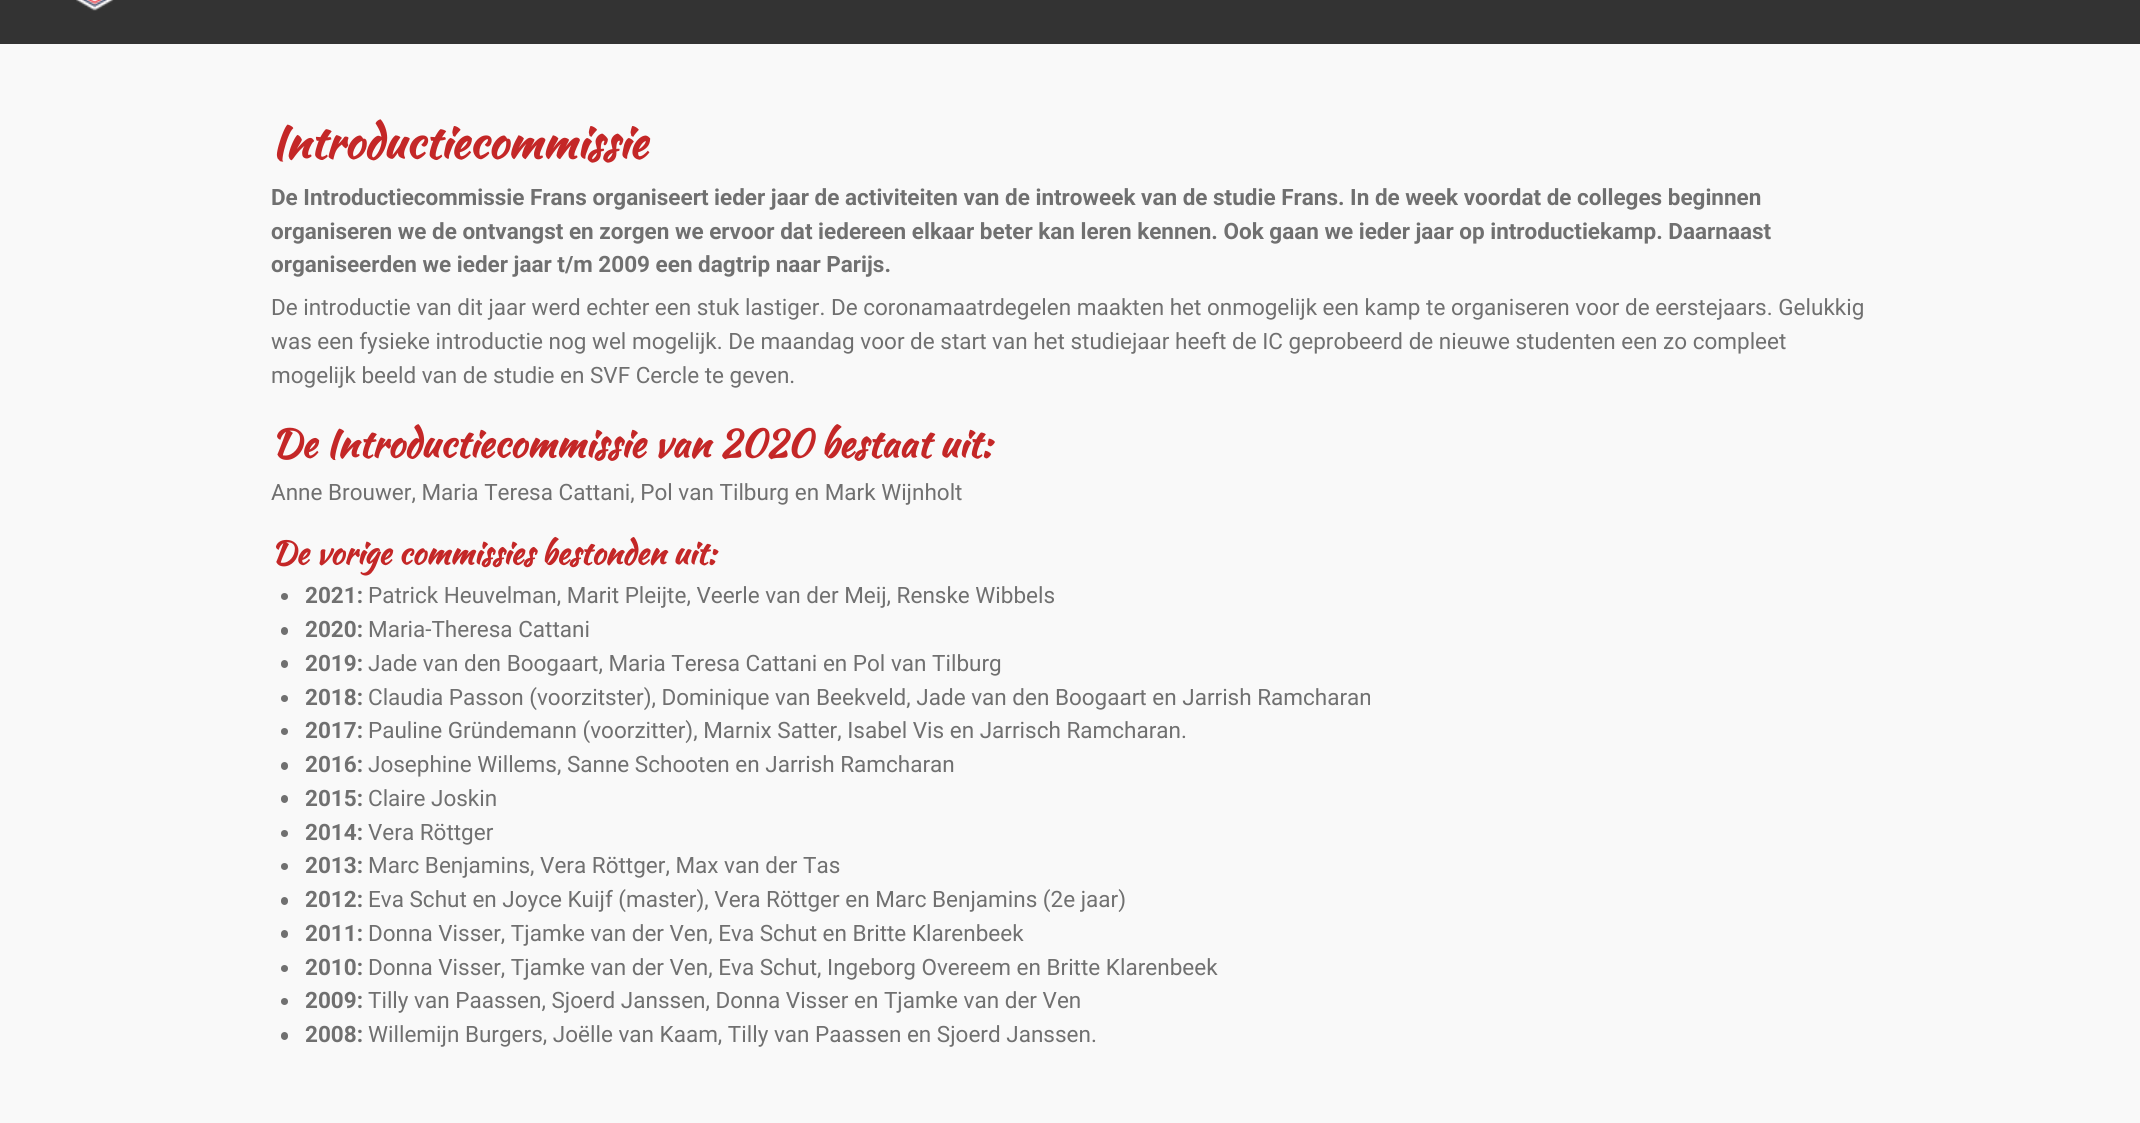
#include <cairo/cairo.h>
#include <math.h>
#include <stddef.h>

typedef struct { double x, y; const char *s; } line_t;
static cairo_t *cr;

static void rgb(unsigned color)
{
	cairo_set_source_rgb(cr, (color >> 16) / 255.0, (color >> 8 & 255) / 255.0, (color & 255) / 255.0);
}

static void rrect(double x, double y, double w, double h, double r)
{
	cairo_new_sub_path(cr);
	cairo_arc(cr, x + w - r, y + h - r, r, 0, M_PI / 2);
	cairo_arc(cr, x + r, y + h - r, r, M_PI / 2, M_PI);
	cairo_arc(cr, x + r, y + r, r, M_PI, 1.5 * M_PI);
	cairo_arc(cr, x + w - r, y + r, r, 1.5 * M_PI, 2 * M_PI);
	cairo_close_path(cr);
}

static void image(const char *path, double x, double y, double w, double h)
{
	cairo_surface_t *image = cairo_image_surface_create_from_png(path);
	cairo_save(cr);
	cairo_set_source_surface(cr, image, x, y);
	cairo_rectangle(cr, x, y, w, h);
	cairo_fill(cr);
	cairo_restore(cr);
	cairo_surface_destroy(image);
}

int main(void) {
	cairo_surface_t *surface = cairo_image_surface_create(CAIRO_FORMAT_RGB24, 2140, 1123);
	cr = cairo_create(surface);
	cairo_font_options_t *options = cairo_font_options_create();
	cairo_font_options_set_hint_metrics(options, CAIRO_HINT_METRICS_OFF);
	cairo_font_options_set_hint_style(options, CAIRO_HINT_STYLE_NONE);
	cairo_set_font_options(cr, options);
	cairo_set_miter_limit(cr, 4);
	rgb(0x333333);
	cairo_paint(cr);
	image("img/1.png", 76, 0, 38, 11);
	rgb(0xf9f9f9);
	cairo_rectangle(cr, 0, 44, 2140, 1079);
	cairo_fill(cr);
	rgb(0x707070);
	cairo_arc(cr, 284.5, 596.5, 3.5, 0, 2 * M_PI);
	cairo_fill(cr);
	rrect(281, 627, 7, 8, 3.5);
	cairo_fill(cr);
	rrect(281, 660, 7, 8, 3.5);
	cairo_fill(cr);
	cairo_arc(cr, 284.5, 698.5, 3.5, 0, 2 * M_PI);
	cairo_fill(cr);
	cairo_arc(cr, 284.5, 731.5, 3.5, 0, 2 * M_PI);
	cairo_fill(cr);
	rrect(281, 762, 7, 8, 3.5);
	cairo_fill(cr);
	rrect(281, 795, 7, 8, 3.5);
	cairo_fill(cr);
	cairo_arc(cr, 284.5, 833.5, 3.5, 0, 2 * M_PI);
	cairo_fill(cr);
	cairo_arc(cr, 284.5, 866.5, 3.5, 0, 2 * M_PI);
	cairo_fill(cr);
	rrect(281, 897, 7, 8, 3.5);
	cairo_fill(cr);
	rrect(281, 930, 7, 8, 3.5);
	cairo_fill(cr);
	cairo_arc(cr, 284.5, 968.5, 3.5, 0, 2 * M_PI);
	cairo_fill(cr);
	cairo_arc(cr, 284.5, 1001.5, 3.5, 0, 2 * M_PI);
	cairo_fill(cr);
	rrect(281, 1032, 7, 8, 3.5);
	cairo_fill(cr);
	cairo_select_font_face(cr, "Kaushan Script", CAIRO_FONT_SLANT_NORMAL, CAIRO_FONT_WEIGHT_BOLD);
	cairo_set_font_size(cr, 45);
	rgb(0xc42727);
	cairo_move_to(cr, 271, 158);
	cairo_show_text(cr, "Introductiecommissie");
	cairo_select_font_face(cr, "Roboto", CAIRO_FONT_SLANT_NORMAL, CAIRO_FONT_WEIGHT_BOLD);
	cairo_set_font_size(cr, 22.5);
	rgb(0x707070);
	{
		static const line_t items[] = {
			{271, 205, "De Introductiecommissie Frans organiseert ieder jaar de activiteiten van de introweek van de studie Frans. In de week voordat de colleges beginnen"},
			{271, 239, "organiseren we de ontvangst en zorgen we ervoor dat iedereen elkaar beter kan leren kennen. Ook gaan we ieder jaar op introductiekamp. Daarnaast"},
			{271, 272, "organiseerden we ieder jaar t/m 2009 een dagtrip naar Parijs."},
		};
		for (size_t i = 0; i < sizeof items / sizeof *items; i++) {
			cairo_move_to(cr, items[i].x, items[i].y);
			cairo_show_text(cr, items[i].s);
		}
	}
	cairo_select_font_face(cr, "Roboto", CAIRO_FONT_SLANT_NORMAL, CAIRO_FONT_WEIGHT_NORMAL);
	{
		static const line_t items[] = {
			{271, 315, "De introductie van dit jaar werd echter een stuk lastiger. De coronamaatrdegelen maakten het onmogelijk een kamp te organiseren voor de eerstejaars. Gelukkig"},
			{271, 349, "was een fysieke introductie nog wel mogelijk. De maandag voor de start van het studiejaar heeft de IC geprobeerd de nieuwe studenten een zo compleet"},
			{271, 383, "mogelijk beeld van de studie en SVF Cercle te geven."},
		};
		for (size_t i = 0; i < sizeof items / sizeof *items; i++) {
			cairo_move_to(cr, items[i].x, items[i].y);
			cairo_show_text(cr, items[i].s);
		}
	}
	cairo_select_font_face(cr, "Kaushan Script", CAIRO_FONT_SLANT_NORMAL, CAIRO_FONT_WEIGHT_BOLD);
	cairo_set_font_size(cr, 38.25);
	rgb(0xc42727);
	cairo_move_to(cr, 271, 457);
	cairo_show_text(cr, "De Introductiecommissie van 2020 bestaat uit:");
	cairo_select_font_face(cr, "Roboto", CAIRO_FONT_SLANT_NORMAL, CAIRO_FONT_WEIGHT_NORMAL);
	cairo_set_font_size(cr, 22.5);
	rgb(0x707070);
	cairo_move_to(cr, 271, 500);
	cairo_show_text(cr, "Anne Brouwer, Maria Teresa Cattani, Pol van Tilburg en Mark Wijnholt");
	cairo_select_font_face(cr, "Kaushan Script", CAIRO_FONT_SLANT_NORMAL, CAIRO_FONT_WEIGHT_BOLD);
	cairo_set_font_size(cr, 31.5);
	rgb(0xc42727);
	cairo_move_to(cr, 271, 564);
	cairo_show_text(cr, "De vorige commissies bestonden uit:");
	cairo_select_font_face(cr, "Roboto", CAIRO_FONT_SLANT_NORMAL, CAIRO_FONT_WEIGHT_BOLD);
	cairo_set_font_size(cr, 22.5);
	rgb(0x707070);
	cairo_move_to(cr, 305, 603);
	cairo_show_text(cr, "2021:");
	cairo_select_font_face(cr, "Roboto", CAIRO_FONT_SLANT_NORMAL, CAIRO_FONT_WEIGHT_NORMAL);
	cairo_move_to(cr, 368, 603);
	cairo_show_text(cr, "Patrick Heuvelman, Marit Pleijte, Veerle van der Meij, Renske Wibbels");
	cairo_select_font_face(cr, "Roboto", CAIRO_FONT_SLANT_NORMAL, CAIRO_FONT_WEIGHT_BOLD);
	cairo_move_to(cr, 305, 637);
	cairo_show_text(cr, "2020:");
	cairo_select_font_face(cr, "Roboto", CAIRO_FONT_SLANT_NORMAL, CAIRO_FONT_WEIGHT_NORMAL);
	cairo_move_to(cr, 368, 637);
	cairo_show_text(cr, "Maria-Theresa Cattani");
	cairo_select_font_face(cr, "Roboto", CAIRO_FONT_SLANT_NORMAL, CAIRO_FONT_WEIGHT_BOLD);
	cairo_move_to(cr, 305, 671);
	cairo_show_text(cr, "2019:");
	cairo_select_font_face(cr, "Roboto", CAIRO_FONT_SLANT_NORMAL, CAIRO_FONT_WEIGHT_NORMAL);
	cairo_move_to(cr, 368, 671);
	cairo_show_text(cr, "Jade van den Boogaart, Maria Teresa Cattani en Pol van Tilburg");
	cairo_select_font_face(cr, "Roboto", CAIRO_FONT_SLANT_NORMAL, CAIRO_FONT_WEIGHT_BOLD);
	cairo_move_to(cr, 305, 705);
	cairo_show_text(cr, "2018:");
	cairo_select_font_face(cr, "Roboto", CAIRO_FONT_SLANT_NORMAL, CAIRO_FONT_WEIGHT_NORMAL);
	cairo_move_to(cr, 368, 705);
	cairo_show_text(cr, "Claudia Passon (voorzitster), Dominique van Beekveld, Jade van den Boogaart en Jarrish Ramcharan");
	cairo_select_font_face(cr, "Roboto", CAIRO_FONT_SLANT_NORMAL, CAIRO_FONT_WEIGHT_BOLD);
	cairo_move_to(cr, 305, 738);
	cairo_show_text(cr, "2017:");
	cairo_select_font_face(cr, "Roboto", CAIRO_FONT_SLANT_NORMAL, CAIRO_FONT_WEIGHT_NORMAL);
	cairo_move_to(cr, 368, 738);
	cairo_show_text(cr, "Pauline Gründemann (voorzitter), Marnix Satter, Isabel Vis en Jarrisch Ramcharan.");
	cairo_select_font_face(cr, "Roboto", CAIRO_FONT_SLANT_NORMAL, CAIRO_FONT_WEIGHT_BOLD);
	cairo_move_to(cr, 305, 772);
	cairo_show_text(cr, "2016:");
	cairo_select_font_face(cr, "Roboto", CAIRO_FONT_SLANT_NORMAL, CAIRO_FONT_WEIGHT_NORMAL);
	cairo_move_to(cr, 368, 772);
	cairo_show_text(cr, "Josephine Willems, Sanne Schooten en Jarrish Ramcharan");
	cairo_select_font_face(cr, "Roboto", CAIRO_FONT_SLANT_NORMAL, CAIRO_FONT_WEIGHT_BOLD);
	cairo_move_to(cr, 305, 806);
	cairo_show_text(cr, "2015:");
	cairo_select_font_face(cr, "Roboto", CAIRO_FONT_SLANT_NORMAL, CAIRO_FONT_WEIGHT_NORMAL);
	cairo_move_to(cr, 368, 806);
	cairo_show_text(cr, "Claire Joskin");
	cairo_select_font_face(cr, "Roboto", CAIRO_FONT_SLANT_NORMAL, CAIRO_FONT_WEIGHT_BOLD);
	cairo_move_to(cr, 305, 840);
	cairo_show_text(cr, "2014:");
	cairo_select_font_face(cr, "Roboto", CAIRO_FONT_SLANT_NORMAL, CAIRO_FONT_WEIGHT_NORMAL);
	cairo_move_to(cr, 368, 840);
	cairo_show_text(cr, "Vera Röttger");
	cairo_select_font_face(cr, "Roboto", CAIRO_FONT_SLANT_NORMAL, CAIRO_FONT_WEIGHT_BOLD);
	cairo_move_to(cr, 305, 873);
	cairo_show_text(cr, "2013:");
	cairo_select_font_face(cr, "Roboto", CAIRO_FONT_SLANT_NORMAL, CAIRO_FONT_WEIGHT_NORMAL);
	cairo_move_to(cr, 368, 873);
	cairo_show_text(cr, "Marc Benjamins, Vera Röttger, Max van der Tas");
	cairo_select_font_face(cr, "Roboto", CAIRO_FONT_SLANT_NORMAL, CAIRO_FONT_WEIGHT_BOLD);
	cairo_move_to(cr, 305, 907);
	cairo_show_text(cr, "2012:");
	cairo_select_font_face(cr, "Roboto", CAIRO_FONT_SLANT_NORMAL, CAIRO_FONT_WEIGHT_NORMAL);
	cairo_move_to(cr, 368, 907);
	cairo_show_text(cr, "Eva Schut en Joyce Kuijf (master), Vera Röttger en Marc Benjamins (2e jaar)");
	cairo_select_font_face(cr, "Roboto", CAIRO_FONT_SLANT_NORMAL, CAIRO_FONT_WEIGHT_BOLD);
	cairo_move_to(cr, 305, 941);
	cairo_show_text(cr, "2011:");
	cairo_select_font_face(cr, "Roboto", CAIRO_FONT_SLANT_NORMAL, CAIRO_FONT_WEIGHT_NORMAL);
	cairo_move_to(cr, 368, 941);
	cairo_show_text(cr, "Donna Visser, Tjamke van der Ven, Eva Schut en Britte Klarenbeek");
	cairo_select_font_face(cr, "Roboto", CAIRO_FONT_SLANT_NORMAL, CAIRO_FONT_WEIGHT_BOLD);
	cairo_move_to(cr, 305, 975);
	cairo_show_text(cr, "2010:");
	cairo_select_font_face(cr, "Roboto", CAIRO_FONT_SLANT_NORMAL, CAIRO_FONT_WEIGHT_NORMAL);
	cairo_move_to(cr, 368, 975);
	cairo_show_text(cr, "Donna Visser, Tjamke van der Ven, Eva Schut, Ingeborg Overeem en Britte Klarenbeek");
	cairo_select_font_face(cr, "Roboto", CAIRO_FONT_SLANT_NORMAL, CAIRO_FONT_WEIGHT_BOLD);
	cairo_move_to(cr, 305, 1008);
	cairo_show_text(cr, "2009:");
	cairo_select_font_face(cr, "Roboto", CAIRO_FONT_SLANT_NORMAL, CAIRO_FONT_WEIGHT_NORMAL);
	cairo_move_to(cr, 368, 1008);
	cairo_show_text(cr, "Tilly van Paassen, Sjoerd Janssen, Donna Visser en Tjamke van der Ven");
	cairo_select_font_face(cr, "Roboto", CAIRO_FONT_SLANT_NORMAL, CAIRO_FONT_WEIGHT_BOLD);
	cairo_move_to(cr, 305, 1042);
	cairo_show_text(cr, "2008:");
	cairo_select_font_face(cr, "Roboto", CAIRO_FONT_SLANT_NORMAL, CAIRO_FONT_WEIGHT_NORMAL);
	cairo_move_to(cr, 368, 1042);
	cairo_show_text(cr, "Willemijn Burgers, Joëlle van Kaam, Tilly van Paassen en Sjoerd Janssen.");
	cairo_surface_write_to_png(surface, "page.png");
	cairo_font_options_destroy(options);
	cairo_destroy(cr);
	cairo_surface_destroy(surface);
	return 0;
}
